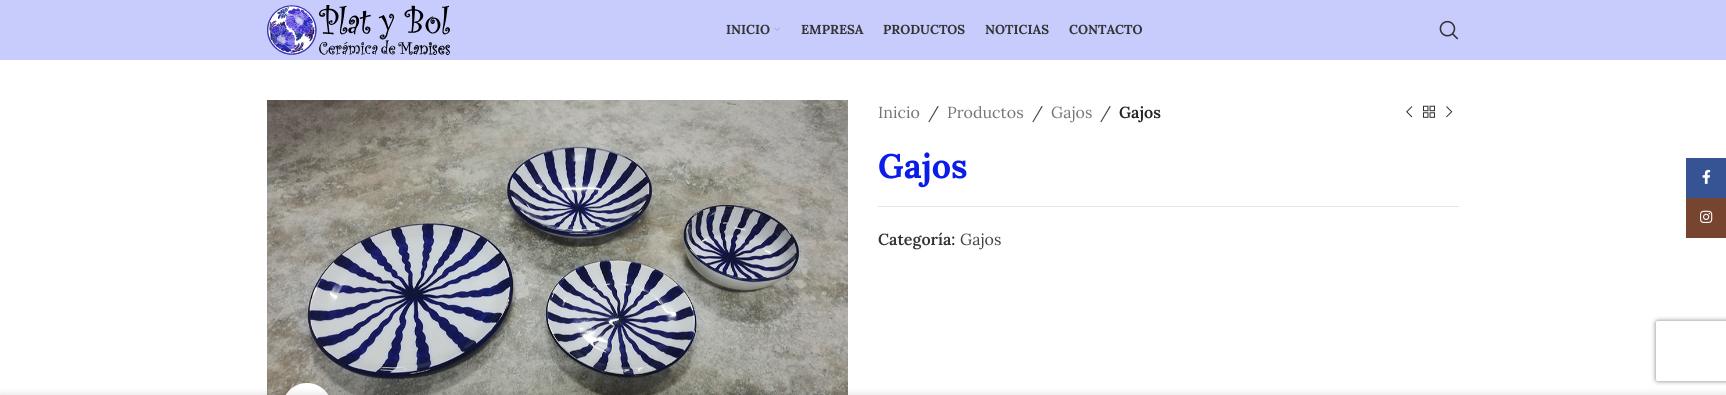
#include <cairo/cairo.h>
#include <math.h>
#include <stddef.h>

typedef struct { double x, y; const char *s; } line_t;
static cairo_t *cr;

static void rgb(unsigned color)
{
	cairo_set_source_rgb(cr, (color >> 16) / 255.0, (color >> 8 & 255) / 255.0, (color & 255) / 255.0);
}

static void rrect(double x, double y, double w, double h, double r)
{
	cairo_new_sub_path(cr);
	cairo_arc(cr, x + w - r, y + h - r, r, 0, M_PI / 2);
	cairo_arc(cr, x + r, y + h - r, r, M_PI / 2, M_PI);
	cairo_arc(cr, x + r, y + r, r, M_PI, 1.5 * M_PI);
	cairo_arc(cr, x + w - r, y + r, r, 1.5 * M_PI, 2 * M_PI);
	cairo_close_path(cr);
}

static void soft_shadow(double x, double y, double w, double h, double r, double blur, double alpha)
{
	cairo_push_group_with_content(cr, CAIRO_CONTENT_ALPHA);
	cairo_set_operator(cr, CAIRO_OPERATOR_SOURCE);
	for (int i = 15; i >= -15 && fmin(w, h) + blur * i / 3 > 0; i -= 2) {
		double e = blur * i / 6;
		cairo_set_source_rgba(cr, 0, 0, 0, alpha * erfc((i - 1) / 8.5) / 2);
		rrect(x - e, y - e, w + 2 * e, h + 2 * e, fmax(0, fmin(r + e + blur * .6, fmin(w, h) / 2 + e)));
		cairo_fill(cr);
	}
	cairo_pattern_t *soft = cairo_pop_group(cr);
	cairo_mask(cr, soft);
	cairo_pattern_destroy(soft);
}

static void image(const char *path, double x, double y, double w, double h)
{
	cairo_surface_t *image = cairo_image_surface_create_from_png(path);
	cairo_save(cr);
	cairo_set_source_surface(cr, image, x, y);
	cairo_rectangle(cr, x, y, w, h);
	cairo_fill(cr);
	cairo_restore(cr);
	cairo_surface_destroy(image);
}

int main(void) {
	cairo_surface_t *surface = cairo_image_surface_create(CAIRO_FORMAT_RGB24, 1726, 395);
	cr = cairo_create(surface);
	cairo_font_options_t *options = cairo_font_options_create();
	cairo_font_options_set_hint_metrics(options, CAIRO_HINT_METRICS_OFF);
	cairo_font_options_set_hint_style(options, CAIRO_HINT_STYLE_NONE);
	cairo_set_font_options(cr, options);
	cairo_set_miter_limit(cr, 4);
	rgb(0xffffff);
	cairo_paint(cr);
	rgb(0xc7ccfd);
	cairo_rectangle(cr, 0, 0, 1726, 60);
	cairo_fill(cr);
	image("img/1.png", 267, 5, 183, 50);
	image("img/2.png", 774, 27, 6, 4);
	image("img/3.png", 1439, 20, 20, 20);
	image("img/4.png", 267, 100, 581, 295);
	rgb(0x000000);
	soft_shadow(282, 383, 50, 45, 25, 2.5, 0.08);
	rgb(0xffffff);
	rrect(282, 383, 50, 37, 25);
	cairo_fill(cr);
	image("img/5.png", 1406, 106, 7, 12);
	image("img/6.png", 1423, 105, 12, 13);
	image("img/7.png", 1446, 106, 7, 12);
	rgb(0xe4e4e4);
	cairo_rectangle(cr, 878, 206, 581, 1);
	cairo_fill(cr);
	rgb(0x365493);
	cairo_rectangle(cr, 1686, 158, 40, 40);
	cairo_fill(cr);
	image("img/8.png", 1702, 169, 9, 15);
	rgb(0x774430);
	cairo_rectangle(cr, 1686, 198, 40, 40);
	cairo_fill(cr);
	image("img/9.png", 1700, 210, 13, 13);
	cairo_save(cr);
	cairo_set_fill_rule(cr, CAIRO_FILL_RULE_EVEN_ODD);
	cairo_new_path(cr);
	cairo_move_to(cr, 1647, 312);
	cairo_line_to(cr, 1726, 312);
	cairo_line_to(cr, 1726, 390);
	cairo_line_to(cr, 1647, 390);
	cairo_close_path(cr);
	cairo_move_to(cr, 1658, 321);
	cairo_line_to(cr, 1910, 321);
	cairo_curve_to(cr, 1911, 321, 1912, 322, 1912, 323);
	cairo_line_to(cr, 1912, 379);
	cairo_curve_to(cr, 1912, 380, 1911, 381, 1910, 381);
	cairo_line_to(cr, 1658, 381);
	cairo_curve_to(cr, 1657, 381, 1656, 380, 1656, 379);
	cairo_line_to(cr, 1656, 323);
	cairo_curve_to(cr, 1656, 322, 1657, 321, 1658, 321);
	cairo_close_path(cr);
	cairo_clip(cr);
	rgb(0x808080);
	soft_shadow(1656, 321, 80, 60, 2, 2.5, 1);
	cairo_restore(cr);
	rgb(0x000000);
	soft_shadow(0, 395, 1726, 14, 0, 4.5, 0.14);
	cairo_select_font_face(cr, "Lora", CAIRO_FONT_SLANT_NORMAL, CAIRO_FONT_WEIGHT_BOLD);
	cairo_set_font_size(cr, 13);
	rgb(0x333333);
	{
		static const line_t items[] = {
			{726, 34, "INICIO"},
			{801, 34, "EMPRESA"},
			{883, 34, "PRODUCTOS"},
			{985, 34, "NOTICIAS"},
			{1069, 34, "CONTACTO"},
		};
		for (size_t i = 0; i < sizeof items / sizeof *items; i++) {
			cairo_move_to(cr, items[i].x, items[i].y);
			cairo_show_text(cr, items[i].s);
		}
	}
	cairo_select_font_face(cr, "Lora", CAIRO_FONT_SLANT_NORMAL, CAIRO_FONT_WEIGHT_NORMAL);
	cairo_set_font_size(cr, 16);
	rgb(0x767676);
	cairo_move_to(cr, 878, 118);
	cairo_show_text(cr, "Inicio");
	rgb(0x444444);
	cairo_move_to(cr, 928, 118);
	cairo_show_text(cr, "/");
	rgb(0x767676);
	cairo_move_to(cr, 947, 118);
	cairo_show_text(cr, "Productos");
	rgb(0x444444);
	cairo_move_to(cr, 1032, 118);
	cairo_show_text(cr, "/");
	rgb(0x767676);
	cairo_move_to(cr, 1051, 118);
	cairo_show_text(cr, "Gajos");
	rgb(0x444444);
	cairo_move_to(cr, 1100, 118);
	cairo_show_text(cr, "/");
	cairo_select_font_face(cr, "Lora SemiBold", CAIRO_FONT_SLANT_NORMAL, CAIRO_FONT_WEIGHT_NORMAL);
	rgb(0x242424);
	cairo_move_to(cr, 1119, 118);
	cairo_show_text(cr, "Gajos");
	cairo_select_font_face(cr, "Lora", CAIRO_FONT_SLANT_NORMAL, CAIRO_FONT_WEIGHT_BOLD);
	cairo_set_font_size(cr, 34);
	rgb(0x091ce8);
	cairo_move_to(cr, 878, 178);
	cairo_show_text(cr, "Gajos");
	cairo_select_font_face(cr, "Lora SemiBold", CAIRO_FONT_SLANT_NORMAL, CAIRO_FONT_WEIGHT_NORMAL);
	cairo_set_font_size(cr, 16);
	rgb(0x333333);
	cairo_move_to(cr, 878, 245);
	cairo_show_text(cr, "Categoría:");
	cairo_select_font_face(cr, "Lora", CAIRO_FONT_SLANT_NORMAL, CAIRO_FONT_WEIGHT_NORMAL);
	rgb(0x444444);
	cairo_move_to(cr, 960, 245);
	cairo_show_text(cr, "Gajos");
	cairo_surface_write_to_png(surface, "page.png");
	cairo_font_options_destroy(options);
	cairo_destroy(cr);
	cairo_surface_destroy(surface);
	return 0;
}
